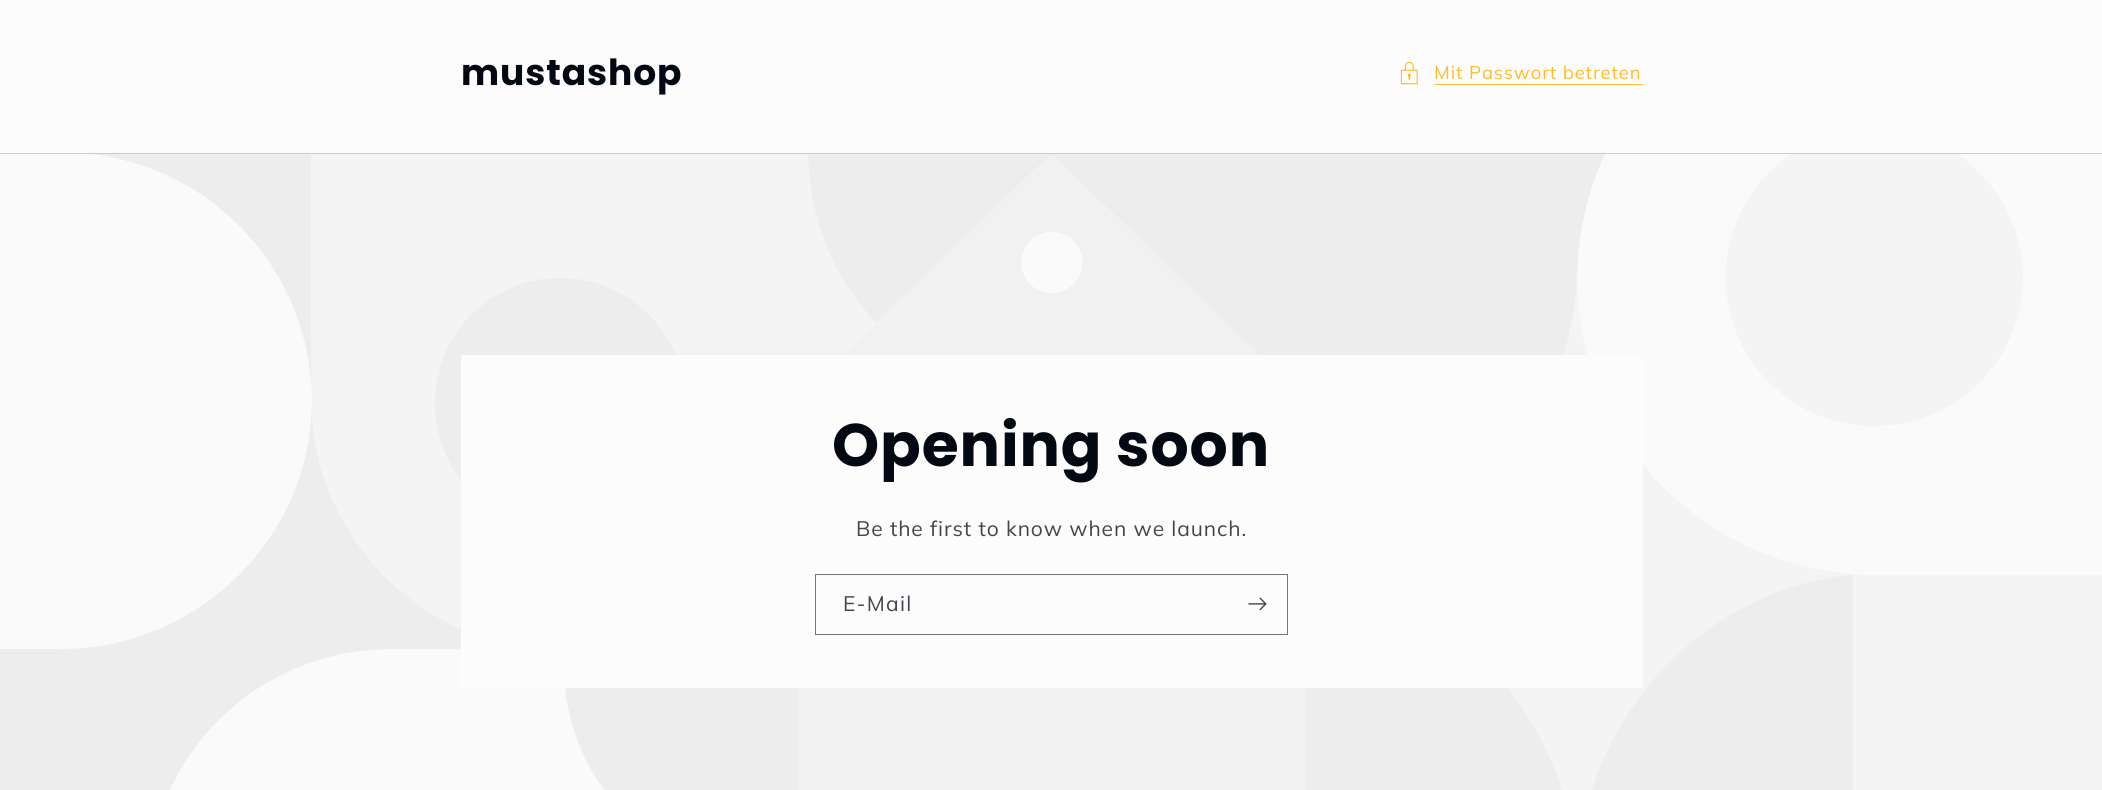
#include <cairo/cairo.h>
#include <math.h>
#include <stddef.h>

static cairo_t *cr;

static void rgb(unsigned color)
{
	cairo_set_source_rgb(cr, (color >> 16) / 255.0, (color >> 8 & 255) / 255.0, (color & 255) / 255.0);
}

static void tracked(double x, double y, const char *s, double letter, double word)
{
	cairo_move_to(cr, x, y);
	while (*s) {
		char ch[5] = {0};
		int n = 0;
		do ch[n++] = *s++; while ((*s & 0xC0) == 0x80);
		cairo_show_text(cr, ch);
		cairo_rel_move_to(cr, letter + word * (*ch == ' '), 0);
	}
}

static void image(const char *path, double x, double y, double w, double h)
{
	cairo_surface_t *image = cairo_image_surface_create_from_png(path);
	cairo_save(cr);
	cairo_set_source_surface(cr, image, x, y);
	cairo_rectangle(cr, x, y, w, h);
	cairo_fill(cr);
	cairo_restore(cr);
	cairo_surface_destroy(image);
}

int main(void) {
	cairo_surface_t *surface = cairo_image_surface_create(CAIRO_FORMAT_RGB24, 2102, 790);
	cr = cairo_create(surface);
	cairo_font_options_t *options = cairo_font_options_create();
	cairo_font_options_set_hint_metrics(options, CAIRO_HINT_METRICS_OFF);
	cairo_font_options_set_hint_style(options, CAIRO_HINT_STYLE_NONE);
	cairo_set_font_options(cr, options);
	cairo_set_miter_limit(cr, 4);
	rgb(0xfcfcfc);
	cairo_paint(cr);
	image("img/1.png", 1400, 61, 18, 24);
	rgb(0xffbc28);
	cairo_rectangle(cr, 1435, 84, 208, 1);
	cairo_fill(cr);
	rgb(0xcacbcd);
	cairo_rectangle(cr, 0, 153, 2102, 1);
	cairo_fill(cr);
	image("img/2.png", 0, 154, 2102, 636);
	rgb(0xfcfcfc);
	cairo_rectangle(cr, 461, 355, 1182, 333);
	cairo_fill(cr);
	cairo_rectangle(cr, 815.5, 574.5, 472, 60);
	rgb(0x72767b);
	cairo_set_line_width(cr, 1);
	cairo_stroke(cr);
	image("img/3.png", 1248, 597, 19, 14);
	cairo_select_font_face(cr, "Poppins", CAIRO_FONT_SLANT_NORMAL, CAIRO_FONT_WEIGHT_BOLD);
	cairo_set_font_size(cr, 36);
	rgb(0x020912);
	tracked(461, 85, "mustashop", 0.9, 0);
	cairo_select_font_face(cr, "Muli", CAIRO_FONT_SLANT_NORMAL, CAIRO_FONT_WEIGHT_NORMAL);
	cairo_set_font_size(cr, 18.4);
	rgb(0xffbc28);
	tracked(1434, 79, "Mit Passwort betreten", 0.9, 0);
	cairo_select_font_face(cr, "Poppins", CAIRO_FONT_SLANT_NORMAL, CAIRO_FONT_WEIGHT_BOLD);
	cairo_set_font_size(cr, 60);
	rgb(0x020912);
	tracked(832, 466, "Opening soon", 0.9, 0);
	cairo_select_font_face(cr, "Muli", CAIRO_FONT_SLANT_NORMAL, CAIRO_FONT_WEIGHT_NORMAL);
	cairo_set_font_size(cr, 21);
	rgb(0x41464d);
	tracked(856, 536, "Be the first to know when we launch.", 0.9, 0);
	tracked(843, 611, "E-Mail", 1.25, 0);
	cairo_surface_write_to_png(surface, "page.png");
	cairo_font_options_destroy(options);
	cairo_destroy(cr);
	cairo_surface_destroy(surface);
	return 0;
}
